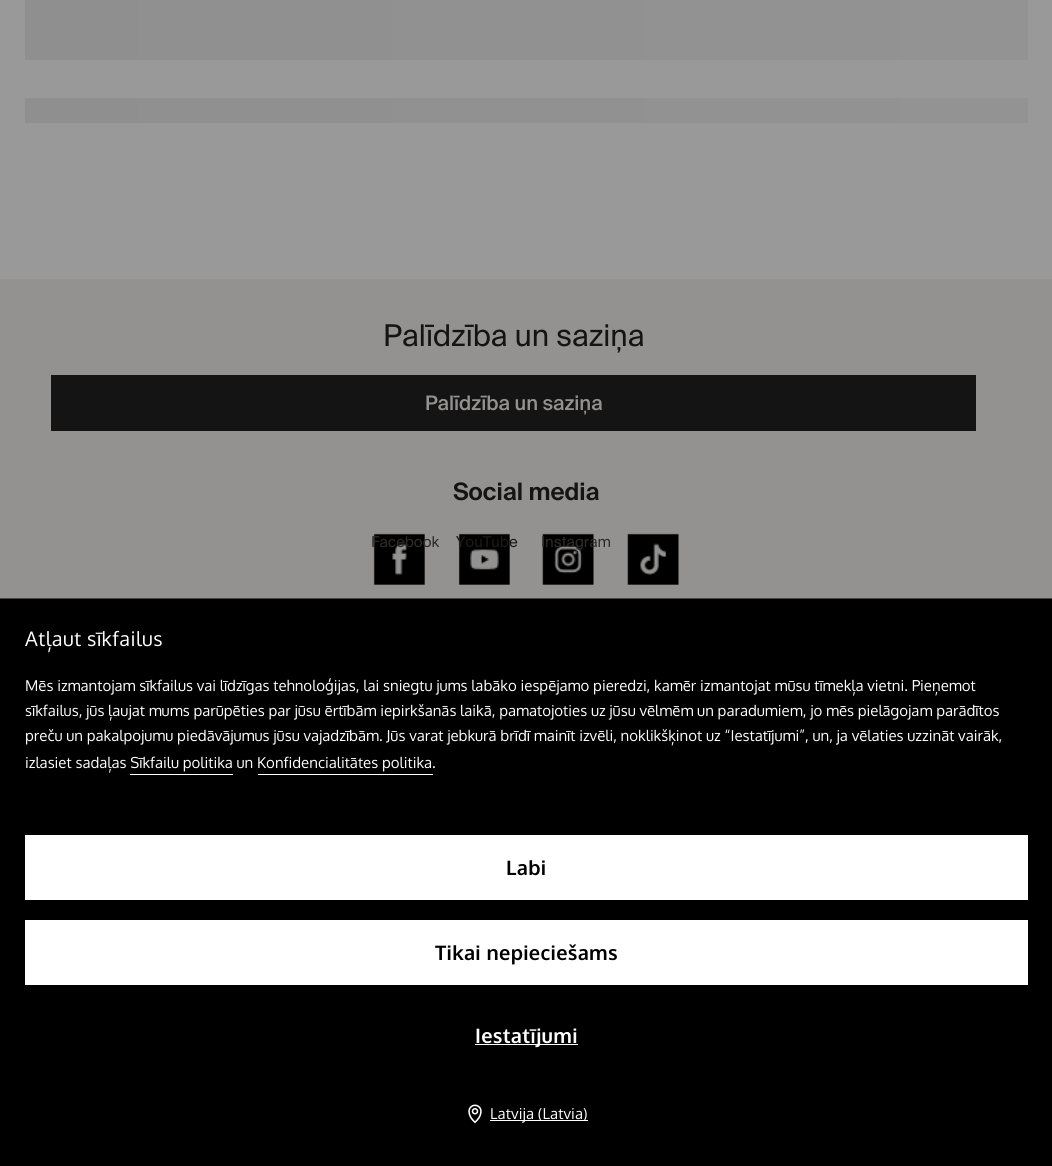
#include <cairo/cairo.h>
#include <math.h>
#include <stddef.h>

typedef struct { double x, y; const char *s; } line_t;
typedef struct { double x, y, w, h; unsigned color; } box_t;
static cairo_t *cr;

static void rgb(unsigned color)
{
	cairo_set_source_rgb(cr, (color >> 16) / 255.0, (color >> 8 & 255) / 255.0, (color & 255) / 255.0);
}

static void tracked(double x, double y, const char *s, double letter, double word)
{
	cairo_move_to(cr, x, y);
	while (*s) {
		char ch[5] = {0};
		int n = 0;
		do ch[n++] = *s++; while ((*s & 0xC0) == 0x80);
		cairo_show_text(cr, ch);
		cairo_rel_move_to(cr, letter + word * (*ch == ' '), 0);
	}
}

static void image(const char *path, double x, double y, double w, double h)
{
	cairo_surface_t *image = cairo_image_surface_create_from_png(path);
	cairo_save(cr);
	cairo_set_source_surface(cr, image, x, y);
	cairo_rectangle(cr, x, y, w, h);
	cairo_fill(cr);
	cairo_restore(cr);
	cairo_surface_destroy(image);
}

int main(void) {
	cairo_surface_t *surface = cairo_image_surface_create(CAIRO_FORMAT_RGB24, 1052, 1166);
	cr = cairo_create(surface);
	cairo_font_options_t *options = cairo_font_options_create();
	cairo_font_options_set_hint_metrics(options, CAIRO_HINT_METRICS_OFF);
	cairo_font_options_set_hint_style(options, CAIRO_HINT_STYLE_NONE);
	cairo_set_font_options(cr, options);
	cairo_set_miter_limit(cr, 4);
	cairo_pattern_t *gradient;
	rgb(0x999999);
	cairo_paint(cr);
	gradient = cairo_pattern_create_linear(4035, 123, 25, 122);
	cairo_pattern_add_color_stop_rgba(gradient, 0, 0.561, 0.561, 0.561, 1);
	cairo_pattern_add_color_stop_rgba(gradient, 0.5, 0.592, 0.592, 0.592, 1);
	cairo_pattern_add_color_stop_rgba(gradient, 1, 0.561, 0.561, 0.561, 1);
	cairo_set_source(cr, gradient);
	cairo_pattern_destroy(gradient);
	cairo_rectangle(cr, 25, 0, 1003, 60);
	cairo_fill(cr);
	gradient = cairo_pattern_create_linear(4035, 148, 25, 147);
	cairo_pattern_add_color_stop_rgba(gradient, 0, 0.561, 0.561, 0.561, 1);
	cairo_pattern_add_color_stop_rgba(gradient, 0.5, 0.592, 0.592, 0.592, 1);
	cairo_pattern_add_color_stop_rgba(gradient, 1, 0.561, 0.561, 0.561, 1);
	cairo_set_source(cr, gradient);
	cairo_pattern_destroy(gradient);
	cairo_rectangle(cr, 25, 98, 1003, 25);
	cairo_fill(cr);
	rgb(0x949291);
	cairo_rectangle(cr, 0, 279, 1052, 319);
	cairo_fill(cr);
	rgb(0x141414);
	cairo_rectangle(cr, 51, 375, 925, 56);
	cairo_fill(cr);
	image("img/1.png", 373, 533, 52, 52);
	image("img/2.png", 458, 533, 52, 52);
	image("img/3.png", 542, 533, 52, 52);
	image("img/4.png", 627, 533, 52, 52);
	{
		static const box_t items[] = {
			{0, 599, 1052, 567, 0x000000},
			{0, 598, 1052, 1, 0x474747},
			{130, 774, 103, 1, 0xffffff},
			{258, 774, 175, 1, 0xffffff},
			{25, 835, 1003, 65, 0xffffff},
			{25, 920, 1003, 65, 0xffffff},
			{475, 1044, 103, 1, 0xffffff},
		};
		for (size_t i = 0; i < sizeof items / sizeof *items; i++) {
			rgb(items[i].color);
			cairo_rectangle(cr, items[i].x, items[i].y, items[i].w, items[i].h);
			cairo_fill(cr);
		}
	}
	image("img/5.png", 468, 1104, 14, 20);
	cairo_rectangle(cr, 490, 1120, 98, 1);
	cairo_fill(cr);
	cairo_select_font_face(cr, "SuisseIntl", CAIRO_FONT_SLANT_NORMAL, CAIRO_FONT_WEIGHT_NORMAL);
	cairo_set_font_size(cr, 30);
	rgb(0x141414);
	cairo_move_to(cr, 383, 346);
	cairo_show_text(cr, "Palīdzība un saziņa");
	cairo_select_font_face(cr, "SuisseIntl Medium", CAIRO_FONT_SLANT_NORMAL, CAIRO_FONT_WEIGHT_NORMAL);
	cairo_set_font_size(cr, 20);
	rgb(0x949291);
	cairo_move_to(cr, 425, 410);
	cairo_show_text(cr, "Palīdzība un saziņa");
	cairo_select_font_face(cr, "SuisseIntl SemiBold", CAIRO_FONT_SLANT_NORMAL, CAIRO_FONT_WEIGHT_NORMAL);
	cairo_set_font_size(cr, 24);
	rgb(0x141414);
	cairo_move_to(cr, 453, 500);
	cairo_show_text(cr, "Social media");
	cairo_select_font_face(cr, "SuisseIntl", CAIRO_FONT_SLANT_NORMAL, CAIRO_FONT_WEIGHT_NORMAL);
	cairo_set_font_size(cr, 15);
	rgb(0x2c2c2b);
	cairo_move_to(cr, 371, 547);
	cairo_show_text(cr, "Facebook");
	rgb(0x1b1a1a);
	cairo_move_to(cr, 456, 547);
	cairo_show_text(cr, "YouTube");
	rgb(0x2c2c2b);
	cairo_move_to(cr, 541, 547);
	cairo_show_text(cr, "Instagram");
	cairo_select_font_face(cr, "Oxygen", CAIRO_FONT_SLANT_NORMAL, CAIRO_FONT_WEIGHT_NORMAL);
	cairo_set_font_size(cr, 20);
	rgb(0xffffff);
	tracked(25, 646, "Atļaut sīkfailus", 0.5, 0);
	cairo_set_font_size(cr, 15);
	{
		static const line_t items[] = {
			{25, 691, "Mēs izmantojam sīkfailus vai līdzīgas tehnoloģijas, lai sniegtu jums labāko iespējamo pieredzi, kamēr izmantojat mūsu tīmekļa vietni. Pieņemot"},
			{25, 716, "sīkfailus, jūs ļaujat mums parūpēties par jūsu ērtībām iepirkšanās laikā, pamatojoties uz jūsu vēlmēm un paradumiem, jo mēs pielāgojam parādītos"},
			{25, 741, "preču un pakalpojumu piedāvājumus jūsu vajadzībām. Jūs varat jebkurā brīdī mainīt izvēli, noklikšķinot uz “Iestatījumi”, un, ja vēlaties uzzināt vairāk,"},
			{25, 768, "izlasiet sadaļas Sīkfailu politika un Konfidencialitātes politika."},
		};
		for (size_t i = 0; i < sizeof items / sizeof *items; i++) {
			cairo_move_to(cr, items[i].x, items[i].y);
			cairo_show_text(cr, items[i].s);
		}
	}
	cairo_select_font_face(cr, "Oxygen", CAIRO_FONT_SLANT_NORMAL, CAIRO_FONT_WEIGHT_BOLD);
	cairo_set_font_size(cr, 20);
	rgb(0x000000);
	tracked(506, 875, "Labi", 0.3, 0);
	tracked(435, 960, "Tikai nepieciešams", 0.3, 0);
	rgb(0xffffff);
	tracked(475, 1043, "Iestatījumi", 0.3, 0);
	cairo_select_font_face(cr, "Oxygen", CAIRO_FONT_SLANT_NORMAL, CAIRO_FONT_WEIGHT_NORMAL);
	cairo_set_font_size(cr, 15);
	tracked(490, 1119, "Latvija (Latvia)", 0.1, 0);
	cairo_surface_write_to_png(surface, "page.png");
	cairo_font_options_destroy(options);
	cairo_destroy(cr);
	cairo_surface_destroy(surface);
	return 0;
}
